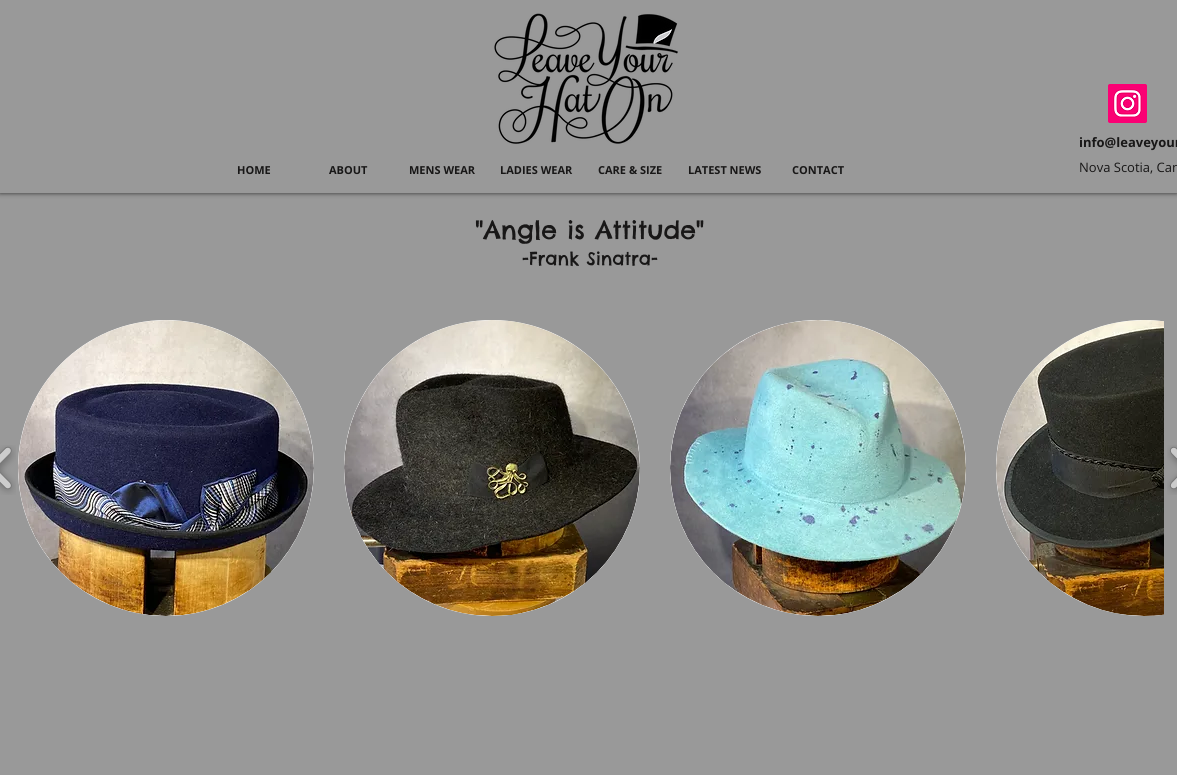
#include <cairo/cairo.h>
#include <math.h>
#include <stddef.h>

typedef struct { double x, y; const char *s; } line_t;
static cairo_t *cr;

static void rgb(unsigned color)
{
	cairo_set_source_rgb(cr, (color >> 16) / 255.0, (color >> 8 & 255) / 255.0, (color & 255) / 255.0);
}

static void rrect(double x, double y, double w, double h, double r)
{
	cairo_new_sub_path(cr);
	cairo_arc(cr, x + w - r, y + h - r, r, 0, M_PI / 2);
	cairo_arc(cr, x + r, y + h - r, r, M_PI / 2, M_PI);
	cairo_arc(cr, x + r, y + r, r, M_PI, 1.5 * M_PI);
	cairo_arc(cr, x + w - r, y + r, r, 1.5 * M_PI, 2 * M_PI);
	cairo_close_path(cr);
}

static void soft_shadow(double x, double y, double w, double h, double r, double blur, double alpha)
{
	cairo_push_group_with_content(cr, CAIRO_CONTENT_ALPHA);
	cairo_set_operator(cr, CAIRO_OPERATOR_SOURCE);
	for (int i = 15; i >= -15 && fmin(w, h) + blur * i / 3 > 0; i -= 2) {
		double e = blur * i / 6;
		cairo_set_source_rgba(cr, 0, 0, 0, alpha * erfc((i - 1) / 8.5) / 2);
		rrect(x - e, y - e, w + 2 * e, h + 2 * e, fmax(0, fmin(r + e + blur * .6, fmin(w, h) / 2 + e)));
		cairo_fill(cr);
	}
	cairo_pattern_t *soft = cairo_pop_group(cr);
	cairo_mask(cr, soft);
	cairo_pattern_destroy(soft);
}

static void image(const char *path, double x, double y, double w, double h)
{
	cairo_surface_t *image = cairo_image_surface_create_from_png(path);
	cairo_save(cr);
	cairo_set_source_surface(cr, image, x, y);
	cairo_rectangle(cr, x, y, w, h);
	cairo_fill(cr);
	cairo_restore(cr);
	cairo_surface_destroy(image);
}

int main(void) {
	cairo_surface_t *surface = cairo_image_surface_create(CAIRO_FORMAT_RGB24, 1177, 775);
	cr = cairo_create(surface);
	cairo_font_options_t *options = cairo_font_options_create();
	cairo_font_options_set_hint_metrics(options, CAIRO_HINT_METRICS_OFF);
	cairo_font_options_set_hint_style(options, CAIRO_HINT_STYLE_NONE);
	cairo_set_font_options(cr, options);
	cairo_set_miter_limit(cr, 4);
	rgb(0x999999);
	cairo_paint(cr);
	rgb(0x000000);
	soft_shadow(0, 0, 1177, 193, 0, 2.5, 0.7);
	rgb(0x999999);
	cairo_rectangle(cr, 0, 0, 1177, 193);
	cairo_fill(cr);
	image("img/1.png", 494, 13, 184, 131);
	image("img/2.png", 1108, 84, 39, 39);
	image("img/3.png", 0, 445, 16, 50);
	rgb(0xffffff);
	cairo_arc(cr, 166, 468, 148, 0, 2 * M_PI);
	cairo_fill(cr);
	image("img/4.png", 18, 320, 296, 296);
	cairo_arc(cr, 492, 468, 148, 0, 2 * M_PI);
	cairo_fill(cr);
	image("img/5.png", 344, 320, 296, 296);
	cairo_arc(cr, 818, 468, 148, 0, 2 * M_PI);
	cairo_fill(cr);
	image("img/6.png", 670, 320, 296, 296);
	cairo_save(cr);
	cairo_rectangle(cr, 18, 320, 1146, 296);
	cairo_clip(cr);
	cairo_arc(cr, 1144, 468, 148, 0, 2 * M_PI);
	cairo_fill(cr);
	cairo_restore(cr);
	image("img/7.png", 996, 320, 168, 296);
	image("img/8.png", 1167, 445, 10, 50);
	cairo_select_font_face(cr, "Open Sans", CAIRO_FONT_SLANT_NORMAL, CAIRO_FONT_WEIGHT_BOLD);
	cairo_set_font_size(cr, 13);
	rgb(0x181717);
	cairo_move_to(cr, 1079, 147);
	cairo_show_text(cr, "info@leaveyour");
	cairo_set_font_size(cr, 11);
	{
		static const line_t items[] = {
			{237, 174, "HOME"},
			{329, 174, "ABOUT"},
			{409, 174, "MENS WEAR"},
			{500, 174, "LADIES WEAR"},
			{598, 174, "CARE & SIZE"},
			{688, 174, "LATEST NEWS"},
			{792, 174, "CONTACT"},
		};
		for (size_t i = 0; i < sizeof items / sizeof *items; i++) {
			cairo_move_to(cr, items[i].x, items[i].y);
			cairo_show_text(cr, items[i].s);
		}
	}
	cairo_select_font_face(cr, "Open Sans", CAIRO_FONT_SLANT_NORMAL, CAIRO_FONT_WEIGHT_NORMAL);
	cairo_set_font_size(cr, 13);
	cairo_move_to(cr, 1079, 172);
	cairo_show_text(cr, "Nova Scotia, Can");
	cairo_select_font_face(cr, "Chelsea Market", CAIRO_FONT_SLANT_NORMAL, CAIRO_FONT_WEIGHT_NORMAL);
	cairo_set_font_size(cr, 25);
	cairo_move_to(cr, 475, 239);
	cairo_show_text(cr, "\"Angle is Attitude\"");
	cairo_set_font_size(cr, 18);
	cairo_move_to(cr, 522, 265);
	cairo_show_text(cr, "-Frank Sinatra-");
	cairo_surface_write_to_png(surface, "page.png");
	cairo_font_options_destroy(options);
	cairo_destroy(cr);
	cairo_surface_destroy(surface);
	return 0;
}
